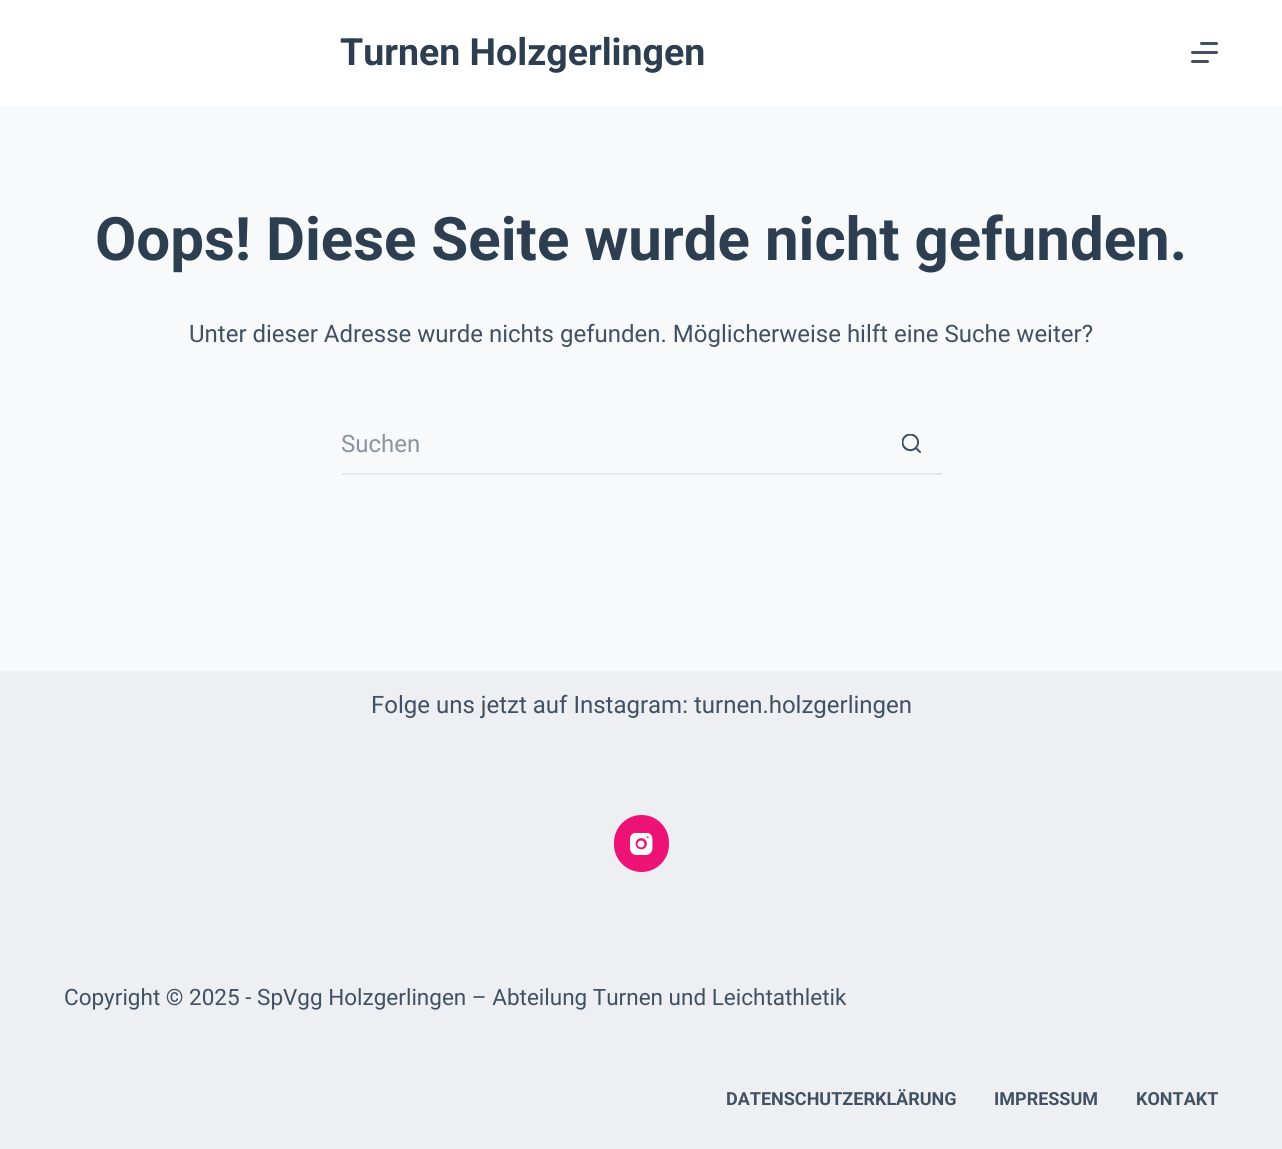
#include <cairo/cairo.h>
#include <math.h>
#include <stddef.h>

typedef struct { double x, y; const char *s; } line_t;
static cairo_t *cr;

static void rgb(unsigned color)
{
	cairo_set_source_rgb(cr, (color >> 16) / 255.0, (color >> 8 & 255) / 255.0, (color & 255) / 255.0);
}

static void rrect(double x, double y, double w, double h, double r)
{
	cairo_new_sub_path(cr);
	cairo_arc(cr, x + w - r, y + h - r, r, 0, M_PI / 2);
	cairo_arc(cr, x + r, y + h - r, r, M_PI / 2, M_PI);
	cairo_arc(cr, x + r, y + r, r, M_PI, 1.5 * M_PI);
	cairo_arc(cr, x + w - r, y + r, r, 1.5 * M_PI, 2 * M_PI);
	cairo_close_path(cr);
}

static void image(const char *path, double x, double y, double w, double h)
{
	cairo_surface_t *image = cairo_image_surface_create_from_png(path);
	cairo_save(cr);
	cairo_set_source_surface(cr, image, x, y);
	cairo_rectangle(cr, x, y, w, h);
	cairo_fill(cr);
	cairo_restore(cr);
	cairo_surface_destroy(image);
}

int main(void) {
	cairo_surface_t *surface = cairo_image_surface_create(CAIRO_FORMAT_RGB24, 1282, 1149);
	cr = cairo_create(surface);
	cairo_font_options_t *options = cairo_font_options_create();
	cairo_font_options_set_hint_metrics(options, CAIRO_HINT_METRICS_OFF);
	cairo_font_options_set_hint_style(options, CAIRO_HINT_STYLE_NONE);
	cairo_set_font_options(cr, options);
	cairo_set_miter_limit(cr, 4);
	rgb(0xf8f9fb);
	cairo_paint(cr);
	rgb(0xffffff);
	cairo_rectangle(cr, 0, 0, 1282, 105);
	cairo_fill(cr);
	rgb(0x415161);
	rrect(1200, 42, 18, 3, 1.5);
	cairo_fill(cr);
	rrect(1191, 51, 27, 3, 1.5);
	cairo_fill(cr);
	rrect(1191, 60, 18, 3, 1.5);
	cairo_fill(cr);
	rgb(0xe2e7ed);
	cairo_rectangle(cr, 342, 473, 600, 2);
	cairo_fill(cr);
	image("img/1.png", 902, 434, 19, 19);
	rgb(0xedeff2);
	cairo_rectangle(cr, 0, 671, 1282, 478);
	cairo_fill(cr);
	rgb(0xed1376);
	rrect(614, 815, 55, 57, 27.5);
	cairo_fill(cr);
	image("img/2.png", 630, 833, 23, 22);
	cairo_select_font_face(cr, "Roboto", CAIRO_FONT_SLANT_NORMAL, CAIRO_FONT_WEIGHT_BOLD);
	cairo_set_font_size(cr, 37.5);
	rgb(0x2c3e50);
	cairo_move_to(cr, 340, 65);
	cairo_show_text(cr, "Turnen Holzgerlingen");
	cairo_set_font_size(cr, 60);
	cairo_move_to(cr, 95, 260);
	cairo_show_text(cr, "Oops! Diese Seite wurde nicht gefunden.");
	cairo_select_font_face(cr, "Roboto", CAIRO_FONT_SLANT_NORMAL, CAIRO_FONT_WEIGHT_NORMAL);
	cairo_set_font_size(cr, 24);
	rgb(0x415161);
	cairo_move_to(cr, 189, 342);
	cairo_show_text(cr, "Unter dieser Adresse wurde nichts gefunden. Möglicherweise hilft eine Suche weiter?");
	rgb(0x8a949f);
	cairo_move_to(cr, 341, 452);
	cairo_show_text(cr, "Suchen");
	rgb(0x415161);
	cairo_move_to(cr, 371, 713);
	cairo_show_text(cr, "Folge uns jetzt auf Instagram: turnen.holzgerlingen");
	cairo_set_font_size(cr, 22.5);
	cairo_move_to(cr, 64, 1005);
	cairo_show_text(cr, "Copyright © 2025 - SpVgg Holzgerlingen – Abteilung Turnen und Leichtathletik");
	cairo_select_font_face(cr, "Roboto", CAIRO_FONT_SLANT_NORMAL, CAIRO_FONT_WEIGHT_BOLD);
	cairo_set_font_size(cr, 18);
	{
		static const line_t items[] = {
			{726, 1105, "DATENSCHUTZERKLÄRUNG"},
			{994, 1105, "IMPRESSUM"},
			{1136, 1105, "KONTAKT"},
		};
		for (size_t i = 0; i < sizeof items / sizeof *items; i++) {
			cairo_move_to(cr, items[i].x, items[i].y);
			cairo_show_text(cr, items[i].s);
		}
	}
	cairo_surface_write_to_png(surface, "page.png");
	cairo_font_options_destroy(options);
	cairo_destroy(cr);
	cairo_surface_destroy(surface);
	return 0;
}
